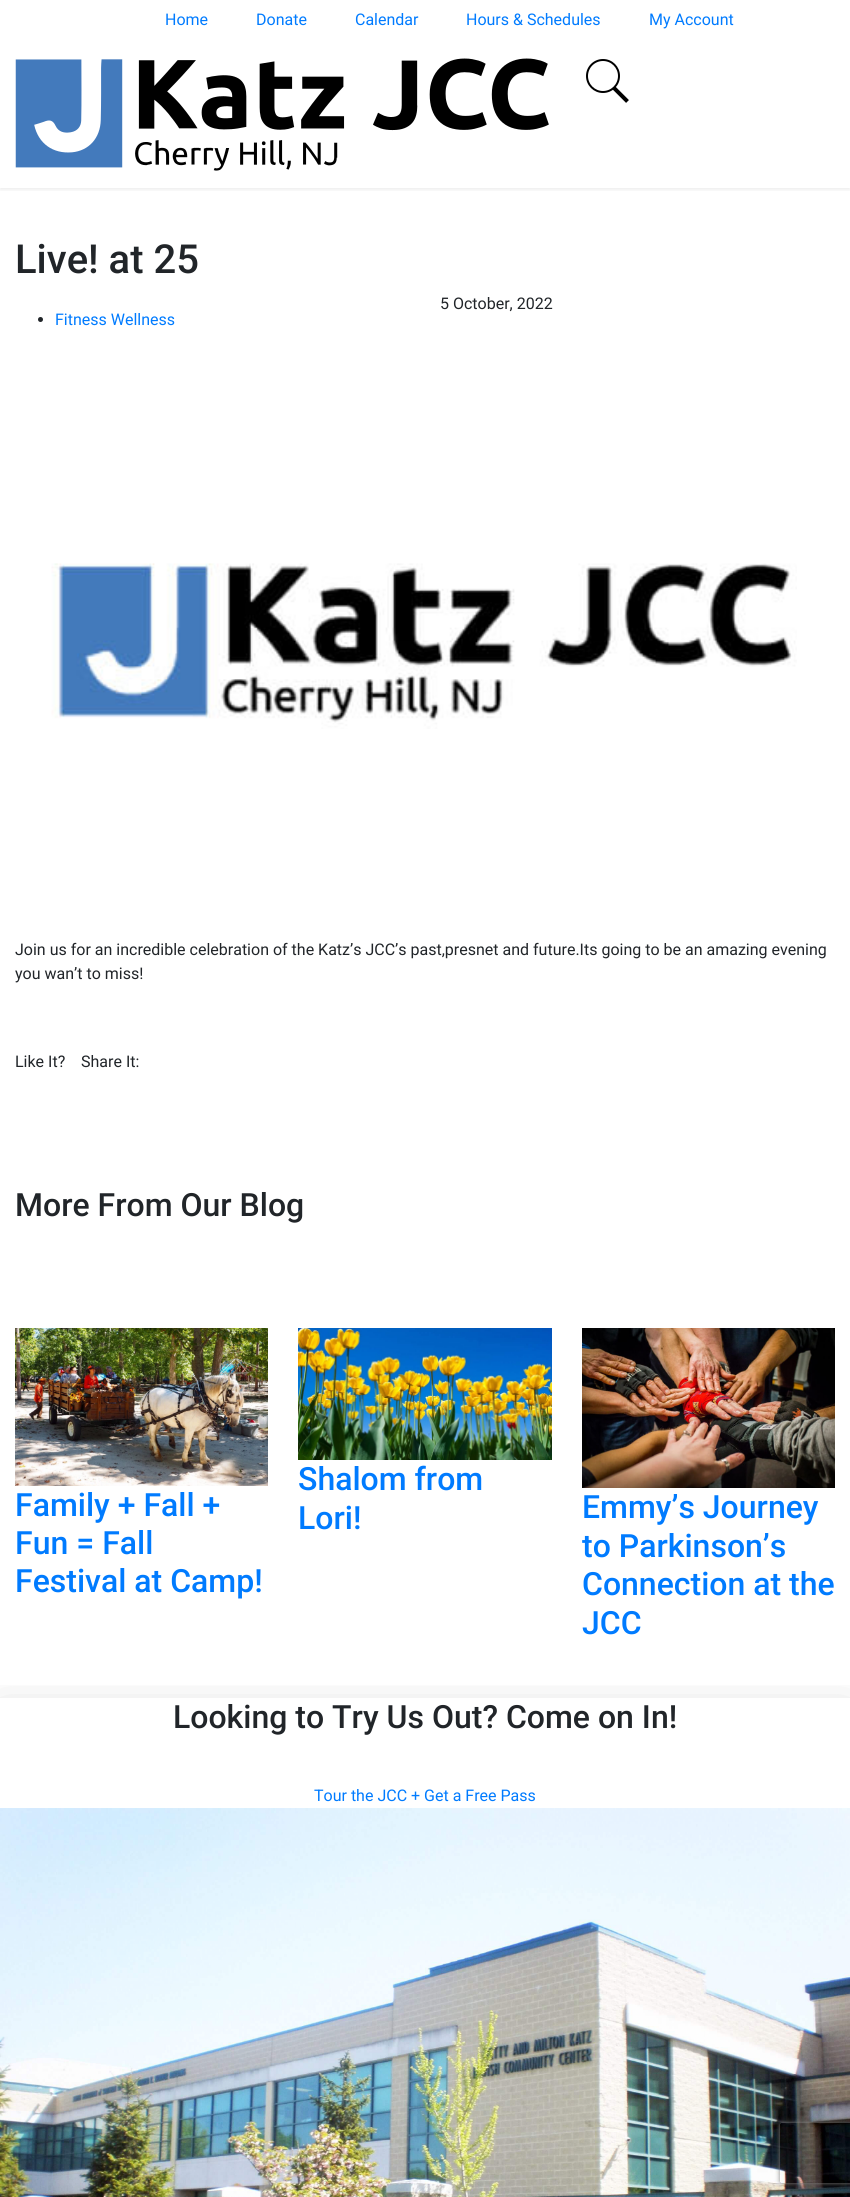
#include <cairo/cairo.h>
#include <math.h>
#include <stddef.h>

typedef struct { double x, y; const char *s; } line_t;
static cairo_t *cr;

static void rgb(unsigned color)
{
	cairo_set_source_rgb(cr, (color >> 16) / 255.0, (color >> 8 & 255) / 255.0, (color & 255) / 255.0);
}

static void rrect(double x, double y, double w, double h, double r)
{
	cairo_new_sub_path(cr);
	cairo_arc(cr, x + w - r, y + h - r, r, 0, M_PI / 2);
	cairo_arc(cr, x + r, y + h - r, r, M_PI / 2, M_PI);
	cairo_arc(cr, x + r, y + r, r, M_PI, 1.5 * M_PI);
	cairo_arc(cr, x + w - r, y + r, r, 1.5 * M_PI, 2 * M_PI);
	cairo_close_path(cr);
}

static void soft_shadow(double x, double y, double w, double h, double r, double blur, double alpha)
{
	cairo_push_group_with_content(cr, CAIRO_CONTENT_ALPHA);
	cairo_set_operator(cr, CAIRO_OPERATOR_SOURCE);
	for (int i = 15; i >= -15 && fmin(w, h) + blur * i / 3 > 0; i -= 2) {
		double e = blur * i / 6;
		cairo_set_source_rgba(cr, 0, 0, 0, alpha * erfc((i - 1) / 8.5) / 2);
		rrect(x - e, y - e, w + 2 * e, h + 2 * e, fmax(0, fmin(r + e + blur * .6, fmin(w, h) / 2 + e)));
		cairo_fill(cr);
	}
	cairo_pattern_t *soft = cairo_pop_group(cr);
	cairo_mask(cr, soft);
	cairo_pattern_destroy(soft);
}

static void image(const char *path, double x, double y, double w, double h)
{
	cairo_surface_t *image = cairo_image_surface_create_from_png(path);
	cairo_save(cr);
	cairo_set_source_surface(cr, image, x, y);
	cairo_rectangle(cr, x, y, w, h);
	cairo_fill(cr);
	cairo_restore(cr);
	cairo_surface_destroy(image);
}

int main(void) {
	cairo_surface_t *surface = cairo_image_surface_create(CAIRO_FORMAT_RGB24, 850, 2197);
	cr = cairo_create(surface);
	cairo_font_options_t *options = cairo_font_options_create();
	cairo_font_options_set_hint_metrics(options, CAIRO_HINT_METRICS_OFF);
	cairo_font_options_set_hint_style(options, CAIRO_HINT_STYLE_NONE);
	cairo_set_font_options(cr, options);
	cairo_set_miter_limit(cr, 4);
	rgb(0xffffff);
	cairo_paint(cr);
	cairo_save(cr);
	cairo_rectangle(cr, 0, 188, 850, 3);
	cairo_clip(cr);
	rgb(0x000000);
	soft_shadow(0, 42, 850, 148, 0, 2, 0.07);
	cairo_restore(cr);
	image("img/1.png", 15, 58, 534, 113);
	cairo_arc(cr, 603, 76, 16, 0, 2 * M_PI);
	rgb(0x000000);
	cairo_stroke(cr);
	cairo_new_path(cr);
	cairo_move_to(cr, 614, 88);
	cairo_line_to(cr, 627.5, 101.5);
	cairo_set_line_width(cr, 4);
	cairo_stroke(cr);
	rgb(0x212529);
	cairo_arc(cr, 40.5, 319.5, 2.5, 0, 2 * M_PI);
	cairo_fill(cr);
	image("img/2.png", 51, 563, 746, 166);
	image("img/3.png", 15, 1328, 253, 158);
	image("img/4.png", 298, 1328, 254, 132);
	image("img/5.png", 582, 1328, 253, 160);
	cairo_save(cr);
	cairo_rectangle(cr, 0, 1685, 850, 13);
	cairo_clip(cr);
	rgb(0x000000);
	soft_shadow(0, 1714, 850, 110, 0, 24, 0.18);
	cairo_restore(cr);
	image("img/6.png", 0, 1808, 850, 389);
	cairo_save(cr);
	cairo_set_fill_rule(cr, CAIRO_FILL_RULE_EVEN_ODD);
	cairo_new_path(cr);
	cairo_move_to(cr, 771, 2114);
	cairo_line_to(cr, 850, 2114);
	cairo_line_to(cr, 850, 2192);
	cairo_line_to(cr, 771, 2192);
	cairo_close_path(cr);
	cairo_move_to(cr, 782, 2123);
	cairo_line_to(cr, 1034, 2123);
	cairo_curve_to(cr, 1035, 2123, 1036, 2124, 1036, 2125);
	cairo_line_to(cr, 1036, 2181);
	cairo_curve_to(cr, 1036, 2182, 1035, 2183, 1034, 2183);
	cairo_line_to(cr, 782, 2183);
	cairo_curve_to(cr, 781, 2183, 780, 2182, 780, 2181);
	cairo_line_to(cr, 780, 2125);
	cairo_curve_to(cr, 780, 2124, 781, 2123, 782, 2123);
	cairo_close_path(cr);
	cairo_clip(cr);
	rgb(0x808080);
	soft_shadow(780, 2123, 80, 60, 2, 2.5, 1);
	cairo_restore(cr);
	cairo_select_font_face(cr, "Roboto", CAIRO_FONT_SLANT_NORMAL, CAIRO_FONT_WEIGHT_NORMAL);
	cairo_set_font_size(cr, 16);
	rgb(0x007bff);
	{
		static const line_t items[] = {
			{165, 25, "Home"},
			{256, 25, "Donate"},
			{355, 25, "Calendar"},
			{466, 25, "Hours & Schedules"},
			{649, 25, "My Account"},
		};
		for (size_t i = 0; i < sizeof items / sizeof *items; i++) {
			cairo_move_to(cr, items[i].x, items[i].y);
			cairo_show_text(cr, items[i].s);
		}
	}
	cairo_select_font_face(cr, "Roboto Medium", CAIRO_FONT_SLANT_NORMAL, CAIRO_FONT_WEIGHT_NORMAL);
	cairo_set_font_size(cr, 40);
	rgb(0x212529);
	cairo_move_to(cr, 15, 273);
	cairo_show_text(cr, "Live! at 25");
	cairo_select_font_face(cr, "Roboto", CAIRO_FONT_SLANT_NORMAL, CAIRO_FONT_WEIGHT_NORMAL);
	cairo_set_font_size(cr, 16);
	cairo_move_to(cr, 440, 309);
	cairo_show_text(cr, "5 October, 2022");
	rgb(0x007bff);
	cairo_move_to(cr, 55, 325);
	cairo_show_text(cr, "Fitness Wellness");
	rgb(0x212529);
	{
		static const line_t items[] = {
			{15, 955, "Join us for an incredible celebration of the Katz’s JCC’s past,presnet and future.Its going to be an amazing evening"},
			{15, 979, "you wan’t to miss!"},
			{15, 1067, "Like It?"},
			{81, 1067, "Share It:"},
		};
		for (size_t i = 0; i < sizeof items / sizeof *items; i++) {
			cairo_move_to(cr, items[i].x, items[i].y);
			cairo_show_text(cr, items[i].s);
		}
	}
	cairo_select_font_face(cr, "Roboto Medium", CAIRO_FONT_SLANT_NORMAL, CAIRO_FONT_WEIGHT_NORMAL);
	cairo_set_font_size(cr, 32);
	cairo_move_to(cr, 15, 1216);
	cairo_show_text(cr, "More From Our Blog");
	rgb(0x007bff);
	{
		static const line_t items[] = {
			{15, 1516, "Family + Fall +"},
			{15, 1554, "Fun = Fall"},
			{15, 1592, "Festival at Camp!"},
			{298, 1490, "Shalom from"},
			{298, 1529, "Lori!"},
			{582, 1518, "Emmy’s Journey"},
			{582, 1557, "to Parkinson’s"},
			{582, 1595, "Connection at the"},
			{582, 1634, "JCC"},
		};
		for (size_t i = 0; i < sizeof items / sizeof *items; i++) {
			cairo_move_to(cr, items[i].x, items[i].y);
			cairo_show_text(cr, items[i].s);
		}
	}
	rgb(0x212529);
	cairo_move_to(cr, 173, 1728);
	cairo_show_text(cr, "Looking to Try Us Out? Come on In!");
	cairo_select_font_face(cr, "Roboto", CAIRO_FONT_SLANT_NORMAL, CAIRO_FONT_WEIGHT_NORMAL);
	cairo_set_font_size(cr, 16);
	rgb(0x007bff);
	cairo_move_to(cr, 314, 1801);
	cairo_show_text(cr, "Tour the JCC + Get a Free Pass");
	cairo_surface_write_to_png(surface, "page.png");
	cairo_font_options_destroy(options);
	cairo_destroy(cr);
	cairo_surface_destroy(surface);
	return 0;
}
